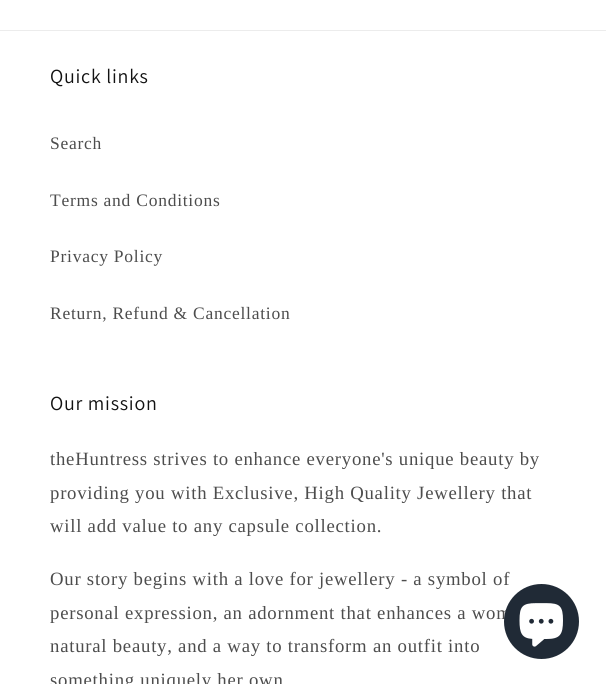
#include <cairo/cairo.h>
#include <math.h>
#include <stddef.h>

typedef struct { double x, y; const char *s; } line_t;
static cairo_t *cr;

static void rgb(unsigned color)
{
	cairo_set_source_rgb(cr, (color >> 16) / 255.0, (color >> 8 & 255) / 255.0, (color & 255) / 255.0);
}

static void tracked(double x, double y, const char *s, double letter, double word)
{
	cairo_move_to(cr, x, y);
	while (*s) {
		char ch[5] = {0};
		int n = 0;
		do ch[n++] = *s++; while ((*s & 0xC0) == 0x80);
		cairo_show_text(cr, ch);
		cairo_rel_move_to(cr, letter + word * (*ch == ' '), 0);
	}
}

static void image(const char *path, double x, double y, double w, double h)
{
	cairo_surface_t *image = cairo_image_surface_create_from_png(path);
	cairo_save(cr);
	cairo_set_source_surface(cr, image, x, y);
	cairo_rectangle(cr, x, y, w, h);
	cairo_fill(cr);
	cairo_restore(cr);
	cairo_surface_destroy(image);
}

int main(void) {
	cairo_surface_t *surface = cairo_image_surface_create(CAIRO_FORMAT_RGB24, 606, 684);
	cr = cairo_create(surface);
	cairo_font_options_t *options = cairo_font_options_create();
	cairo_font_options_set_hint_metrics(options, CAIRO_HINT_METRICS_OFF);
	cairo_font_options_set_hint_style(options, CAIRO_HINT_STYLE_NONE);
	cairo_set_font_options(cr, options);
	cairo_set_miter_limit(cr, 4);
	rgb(0xffffff);
	cairo_paint(cr);
	rgb(0xececec);
	cairo_rectangle(cr, 0, 30, 606, 1);
	cairo_fill(cr);
	cairo_select_font_face(cr, "Assistant", CAIRO_FONT_SLANT_NORMAL, CAIRO_FONT_WEIGHT_NORMAL);
	cairo_set_font_size(cr, 20);
	rgb(0x121212);
	tracked(50, 83, "Quick links", 0.75, 0);
	cairo_select_font_face(cr, "Liberation Serif", CAIRO_FONT_SLANT_NORMAL, CAIRO_FONT_WEIGHT_NORMAL);
	cairo_set_font_size(cr, 17.5);
	rgb(0x4d4d4d);
	{
		static const line_t items[] = {
			{50, 149, "Search"},
			{50, 206, "Terms and Conditions"},
			{50, 262, "Privacy Policy"},
			{50, 319, "Return, Refund & Cancellation"},
		};
		for (size_t i = 0; i < sizeof items / sizeof *items; i++) {
			tracked(items[i].x, items[i].y, items[i].s, 0.75, 0);
		}
	}
	cairo_select_font_face(cr, "Assistant", CAIRO_FONT_SLANT_NORMAL, CAIRO_FONT_WEIGHT_NORMAL);
	cairo_set_font_size(cr, 20);
	rgb(0x121212);
	tracked(50, 410, "Our mission", 0.75, 0);
	cairo_select_font_face(cr, "Liberation Serif", CAIRO_FONT_SLANT_NORMAL, CAIRO_FONT_WEIGHT_NORMAL);
	cairo_set_font_size(cr, 18.75);
	rgb(0x4d4d4d);
	{
		static const line_t items[] = {
			{50, 465, "theHuntress strives to enhance everyone's unique beauty by"},
			{50, 499, "providing you with Exclusive, High Quality Jewellery that"},
			{50, 532, "will add value to any capsule collection."},
			{50, 585, "Our story begins with a love for jewellery - a symbol of"},
			{50, 619, "personal expression, an adornment that enhances a wom"},
			{50, 652, "natural beauty, and a way to transform an outfit into"},
			{50, 686, "something uniquely her own"},
		};
		for (size_t i = 0; i < sizeof items / sizeof *items; i++) {
			tracked(items[i].x, items[i].y, items[i].s, 0.75, 0);
		}
	}
	rgb(0x202a36);
	cairo_new_path(cr);
	cairo_arc(cr, 541.5, 621.5, 37.5, 0, 2 * M_PI);
	cairo_fill(cr);
	image("img/1.png", 519, 603, 44, 44);
	cairo_surface_write_to_png(surface, "page.png");
	cairo_font_options_destroy(options);
	cairo_destroy(cr);
	cairo_surface_destroy(surface);
	return 0;
}
